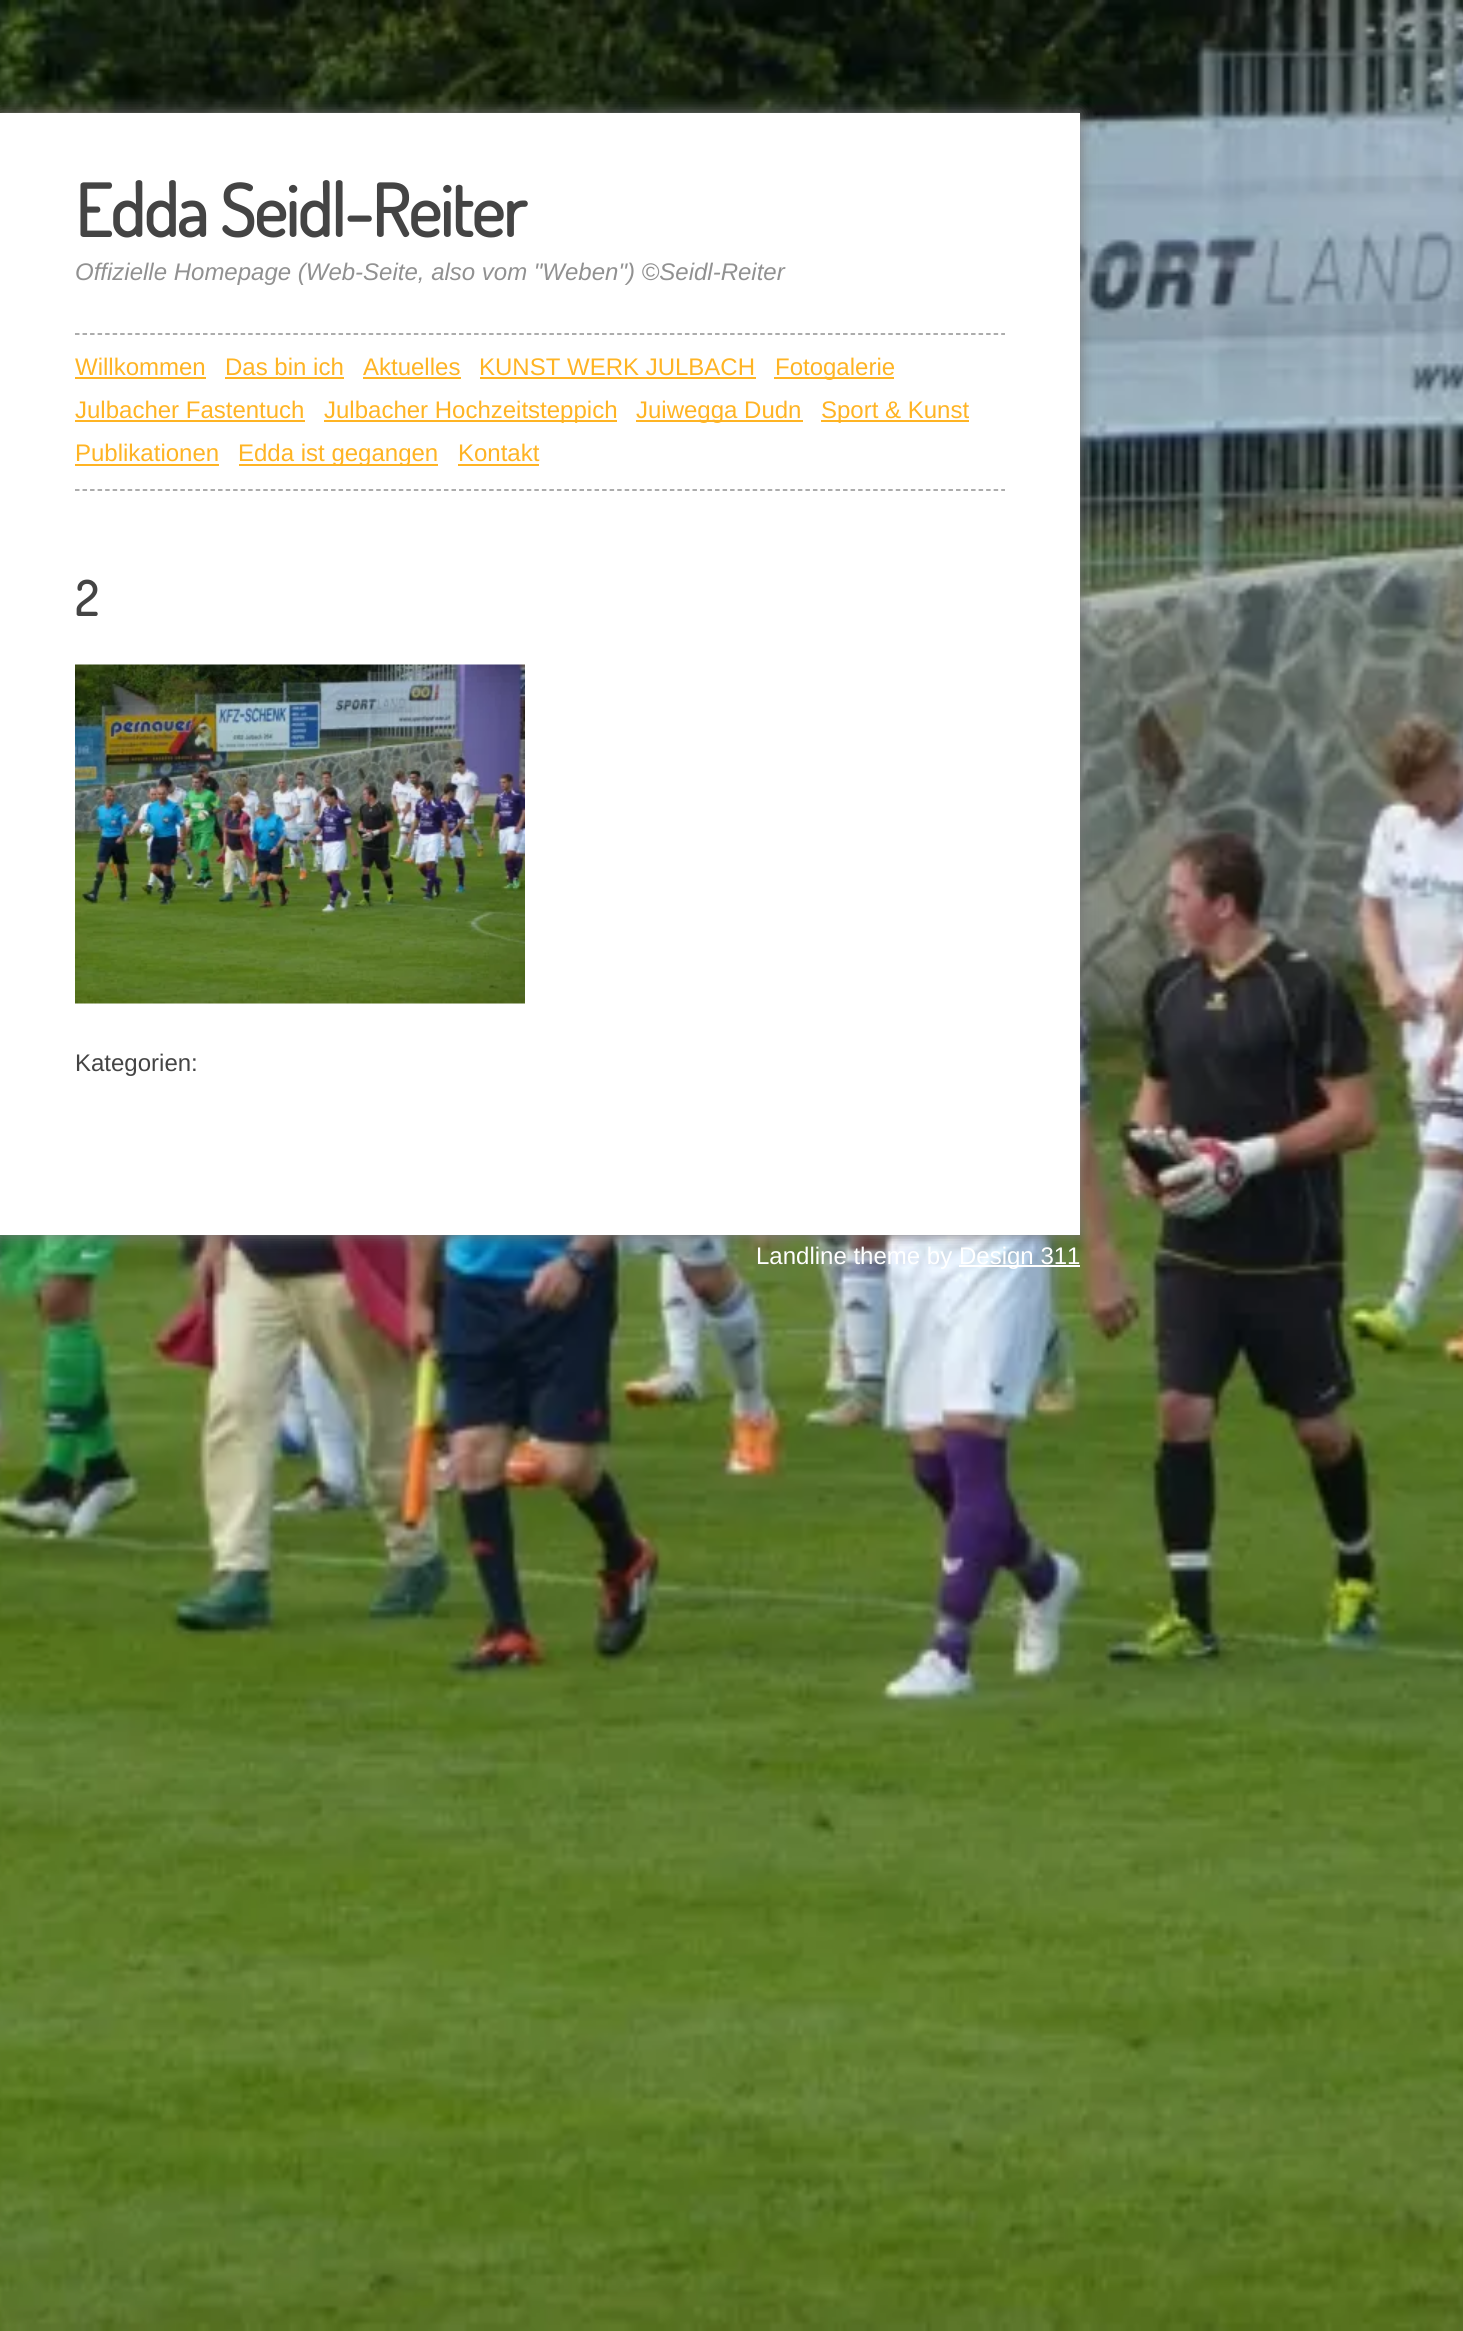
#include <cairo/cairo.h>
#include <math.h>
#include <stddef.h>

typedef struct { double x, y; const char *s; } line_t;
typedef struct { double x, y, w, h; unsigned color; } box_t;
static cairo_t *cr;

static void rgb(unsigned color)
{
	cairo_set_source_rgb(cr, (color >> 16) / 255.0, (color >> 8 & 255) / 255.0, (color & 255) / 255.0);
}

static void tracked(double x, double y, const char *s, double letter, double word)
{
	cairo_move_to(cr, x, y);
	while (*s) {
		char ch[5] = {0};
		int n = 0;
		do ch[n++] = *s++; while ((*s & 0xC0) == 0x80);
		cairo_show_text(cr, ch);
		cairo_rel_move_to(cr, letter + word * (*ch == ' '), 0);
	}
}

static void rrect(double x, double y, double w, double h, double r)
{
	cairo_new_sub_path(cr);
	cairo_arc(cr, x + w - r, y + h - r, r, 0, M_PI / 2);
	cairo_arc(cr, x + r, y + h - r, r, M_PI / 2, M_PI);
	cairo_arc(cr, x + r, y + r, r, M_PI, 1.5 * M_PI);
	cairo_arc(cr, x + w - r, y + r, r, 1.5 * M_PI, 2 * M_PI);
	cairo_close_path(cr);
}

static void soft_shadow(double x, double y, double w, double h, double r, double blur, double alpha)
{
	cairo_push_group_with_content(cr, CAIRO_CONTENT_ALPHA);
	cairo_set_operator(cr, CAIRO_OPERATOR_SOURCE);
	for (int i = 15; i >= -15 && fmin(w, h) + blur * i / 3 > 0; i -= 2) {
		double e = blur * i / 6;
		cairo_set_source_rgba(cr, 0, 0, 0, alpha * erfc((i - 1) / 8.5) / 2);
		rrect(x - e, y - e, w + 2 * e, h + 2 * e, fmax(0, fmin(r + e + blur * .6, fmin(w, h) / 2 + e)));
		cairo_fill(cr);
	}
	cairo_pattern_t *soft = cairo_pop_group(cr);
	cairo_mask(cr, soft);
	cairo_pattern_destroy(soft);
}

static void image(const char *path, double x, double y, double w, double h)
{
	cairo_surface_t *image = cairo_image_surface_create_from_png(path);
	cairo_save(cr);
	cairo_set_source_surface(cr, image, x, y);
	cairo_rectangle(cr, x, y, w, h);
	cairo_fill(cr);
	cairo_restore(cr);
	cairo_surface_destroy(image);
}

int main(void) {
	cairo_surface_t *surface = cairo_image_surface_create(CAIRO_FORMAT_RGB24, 1463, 2331);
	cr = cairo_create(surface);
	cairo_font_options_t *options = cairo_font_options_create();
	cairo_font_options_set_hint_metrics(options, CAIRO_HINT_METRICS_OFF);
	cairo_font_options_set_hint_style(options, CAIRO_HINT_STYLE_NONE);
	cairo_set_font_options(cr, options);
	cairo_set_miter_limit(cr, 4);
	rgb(0xffffff);
	cairo_paint(cr);
	image("img/1.png", 0, 0, 1463, 2331);
	rgb(0x777777);
	soft_shadow(0, 113, 1080, 1122, 0, 7.5, 1);
	rgb(0xffffff);
	cairo_rectangle(cr, 0, 113, 1080, 1122);
	cairo_fill(cr);
	cairo_new_path(cr);
	cairo_move_to(cr, 75, 334);
	cairo_line_to(cr, 1005, 334);
	rgb(0x919191);
	cairo_set_line_width(cr, 1.5);
	cairo_set_dash(cr, (double[]){4.5, 3.03}, 2, 0);
	cairo_stroke(cr);
	cairo_new_path(cr);
	cairo_move_to(cr, 75, 490);
	cairo_line_to(cr, 1005, 490);
	cairo_stroke(cr);
	{
		static const box_t items[] = {
			{75, 377, 131, 2, 0xffb424},
			{225, 377, 119, 2, 0xffb424},
			{363, 377, 98, 2, 0xffb424},
			{480, 377, 276, 2, 0xffb424},
			{774, 377, 120, 2, 0xffb424},
			{75, 420, 230, 2, 0xffb424},
			{324, 420, 293, 2, 0xffb424},
			{636, 420, 167, 2, 0xffb424},
			{821, 420, 148, 2, 0xffb424},
			{75, 464, 144, 2, 0xffb424},
			{239, 464, 199, 2, 0xffb424},
			{458, 464, 81, 2, 0xffb424},
		};
		for (size_t i = 0; i < sizeof items / sizeof *items; i++) {
			rgb(items[i].color);
			cairo_rectangle(cr, items[i].x, items[i].y, items[i].w, items[i].h);
			cairo_fill(cr);
		}
	}
	image("img/2.png", 75, 664, 450, 340);
	rgb(0xffffff);
	cairo_rectangle(cr, 959, 1265, 121, 2);
	cairo_fill(cr);
	cairo_select_font_face(cr, "Dosis", CAIRO_FONT_SLANT_NORMAL, CAIRO_FONT_WEIGHT_BOLD);
	cairo_set_font_size(cr, 72);
	rgb(0x444444);
	tracked(75, 237, "Edda Seidl-Reiter", -1.5, 0);
	cairo_select_font_face(cr, "Liberation Sans", CAIRO_FONT_SLANT_ITALIC, CAIRO_FONT_WEIGHT_NORMAL);
	cairo_set_font_size(cr, 24);
	rgb(0x919191);
	cairo_move_to(cr, 75, 280);
	cairo_show_text(cr, "Offizielle Homepage (Web-Seite, also vom \"Weben\") ©Seidl-Reiter");
	cairo_select_font_face(cr, "Liberation Sans", CAIRO_FONT_SLANT_NORMAL, CAIRO_FONT_WEIGHT_NORMAL);
	rgb(0xffb424);
	{
		static const line_t items[] = {
			{75, 375, "Willkommen"},
			{225, 375, "Das bin ich"},
			{363, 375, "Aktuelles"},
			{479, 375, "KUNST WERK JULBACH"},
			{775, 375, "Fotogalerie"},
			{75, 418, "Julbacher Fastentuch"},
			{324, 418, "Julbacher Hochzeitsteppich"},
			{636, 418, "Juiwegga Dudn"},
			{821, 418, "Sport & Kunst"},
			{75, 461, "Publikationen"},
			{238, 461, "Edda ist gegangen"},
			{458, 461, "Kontakt"},
		};
		for (size_t i = 0; i < sizeof items / sizeof *items; i++) {
			cairo_move_to(cr, items[i].x, items[i].y);
			cairo_show_text(cr, items[i].s);
		}
	}
	cairo_select_font_face(cr, "Dosis", CAIRO_FONT_SLANT_NORMAL, CAIRO_FONT_WEIGHT_BOLD);
	cairo_set_font_size(cr, 48);
	rgb(0x444444);
	tracked(75, 616, "2", -1.5, 0);
	cairo_select_font_face(cr, "Liberation Sans", CAIRO_FONT_SLANT_NORMAL, CAIRO_FONT_WEIGHT_NORMAL);
	cairo_set_font_size(cr, 24);
	cairo_move_to(cr, 75, 1071);
	cairo_show_text(cr, "Kategorien:");
	rgb(0xffffff);
	cairo_move_to(cr, 756, 1264);
	cairo_show_text(cr, "Landline theme by");
	cairo_move_to(cr, 959, 1264);
	cairo_show_text(cr, "Design 311");
	cairo_surface_write_to_png(surface, "page.png");
	cairo_font_options_destroy(options);
	cairo_destroy(cr);
	cairo_surface_destroy(surface);
	return 0;
}
